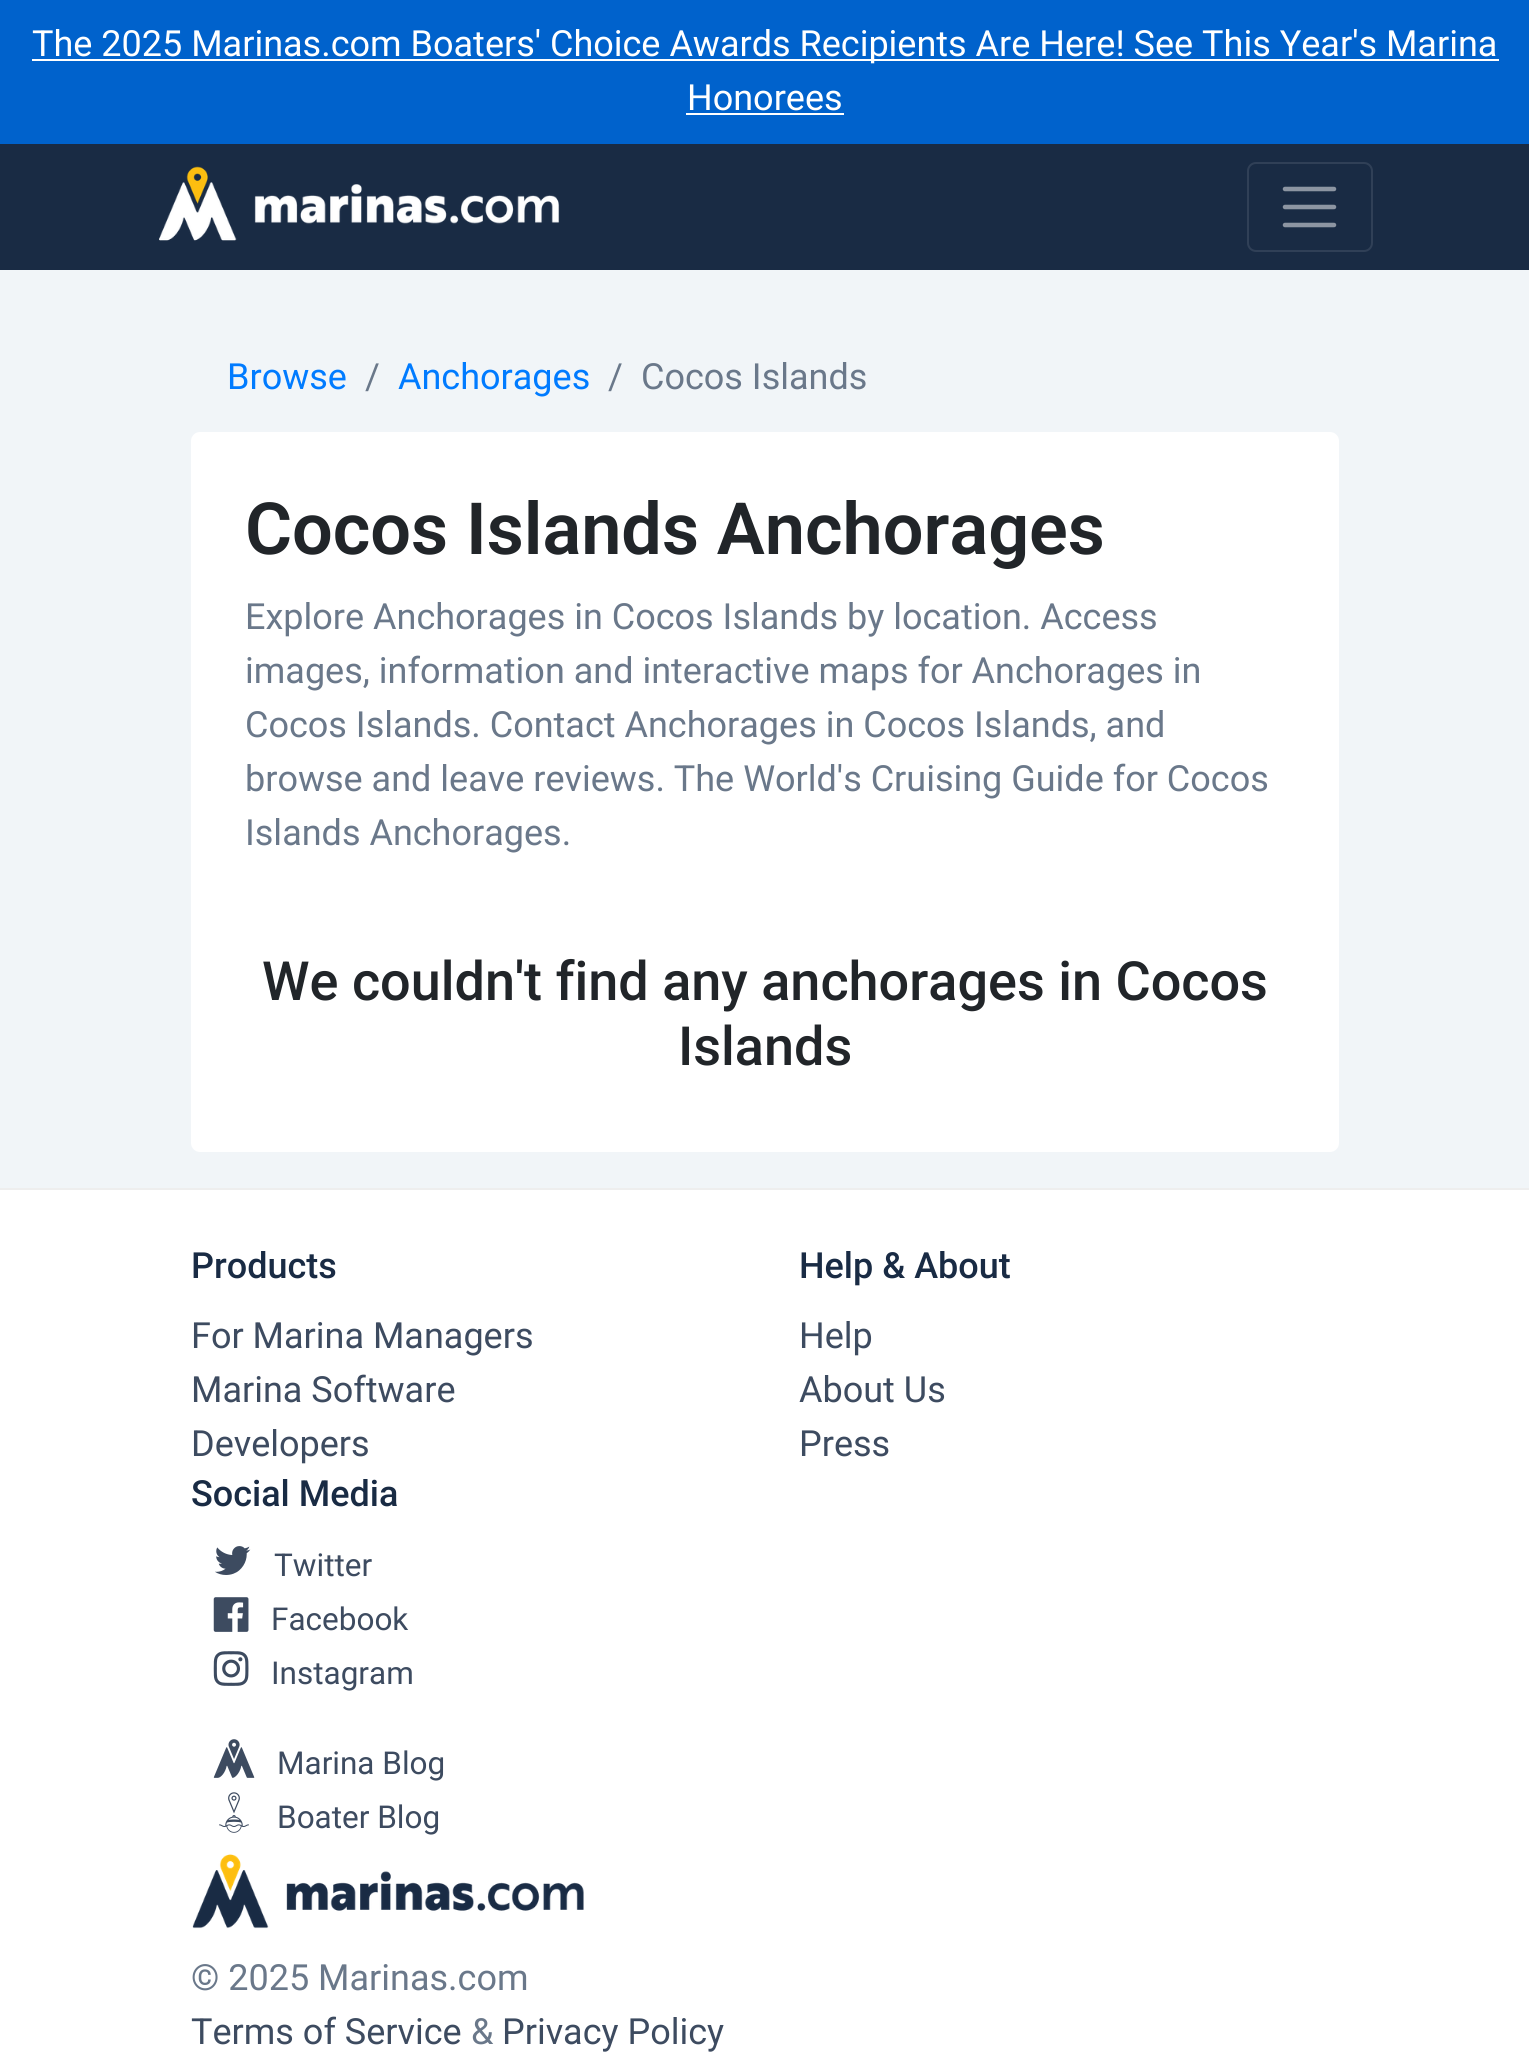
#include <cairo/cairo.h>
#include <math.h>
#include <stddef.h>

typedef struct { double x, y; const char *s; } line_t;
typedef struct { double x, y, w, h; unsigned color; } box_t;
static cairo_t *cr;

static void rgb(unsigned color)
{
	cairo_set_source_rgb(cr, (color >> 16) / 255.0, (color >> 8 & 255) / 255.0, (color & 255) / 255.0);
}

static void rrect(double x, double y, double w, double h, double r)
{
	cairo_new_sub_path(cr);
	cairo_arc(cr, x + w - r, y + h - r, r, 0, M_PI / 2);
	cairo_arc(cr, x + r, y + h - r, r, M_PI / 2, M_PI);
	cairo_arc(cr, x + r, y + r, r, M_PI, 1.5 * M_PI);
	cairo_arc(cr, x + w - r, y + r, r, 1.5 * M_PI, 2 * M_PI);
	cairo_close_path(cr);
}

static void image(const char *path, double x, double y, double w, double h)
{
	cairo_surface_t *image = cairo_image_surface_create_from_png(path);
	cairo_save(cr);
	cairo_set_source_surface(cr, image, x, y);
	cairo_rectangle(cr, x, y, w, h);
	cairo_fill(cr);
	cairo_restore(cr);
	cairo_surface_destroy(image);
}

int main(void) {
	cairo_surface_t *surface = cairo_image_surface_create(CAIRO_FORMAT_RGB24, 1529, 2072);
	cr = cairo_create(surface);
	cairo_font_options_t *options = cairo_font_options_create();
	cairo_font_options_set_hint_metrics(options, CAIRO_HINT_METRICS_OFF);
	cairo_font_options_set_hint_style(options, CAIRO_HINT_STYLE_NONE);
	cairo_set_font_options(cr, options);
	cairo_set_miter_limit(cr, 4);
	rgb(0xf1f5f8);
	cairo_paint(cr);
	{
		static const box_t items[] = {
			{0, 0, 1529, 144, 0x0062cc},
			{32, 59, 1467, 2, 0xffffff},
			{686, 113, 158, 2, 0xffffff},
			{0, 144, 1529, 126, 0x192b44},
		};
		for (size_t i = 0; i < sizeof items / sizeof *items; i++) {
			rgb(items[i].color);
			cairo_rectangle(cr, items[i].x, items[i].y, items[i].w, items[i].h);
			cairo_fill(cr);
		}
	}
	image("img/1.png", 159, 166, 401, 75);
	rrect(1248, 163, 124, 88, 8);
	rgb(0x304057);
	cairo_stroke(cr);
	cairo_new_path(cr);
	cairo_move_to(cr, 1285, 189);
	cairo_line_to(cr, 1334, 189);
	cairo_move_to(cr, 1285, 207);
	cairo_line_to(cr, 1334, 207);
	cairo_move_to(cr, 1285, 225);
	cairo_line_to(cr, 1334, 225);
	rgb(0x8c95a2);
	cairo_set_line_width(cr, 4.5);
	cairo_set_line_cap(cr, CAIRO_LINE_CAP_ROUND);
	cairo_stroke(cr);
	rgb(0xffffff);
	rrect(191, 432, 1148, 720, 9);
	cairo_fill(cr);
	cairo_rectangle(cr, 0, 1190, 1529, 882);
	cairo_fill(cr);
	rgb(0xeeeeee);
	cairo_rectangle(cr, 0, 1188, 1529, 2);
	cairo_fill(cr);
	image("img/2.png", 215, 1546, 36, 29);
	image("img/3.png", 213, 1597, 36, 35);
	image("img/4.png", 213, 1651, 36, 35);
	image("img/5.png", 213, 1739, 42, 39);
	image("img/6.png", 219, 1792, 30, 41);
	image("img/7.png", 192, 1854, 392, 75);
	cairo_select_font_face(cr, "Roboto", CAIRO_FONT_SLANT_NORMAL, CAIRO_FONT_WEIGHT_NORMAL);
	cairo_set_font_size(cr, 36);
	rgb(0xffffff);
	cairo_move_to(cr, 32, 56);
	cairo_show_text(cr, "The 2025 Marinas.com Boaters' Choice Awards Recipients Are Here! See This Year's Marina");
	cairo_move_to(cr, 687, 110);
	cairo_show_text(cr, "Honorees");
	rgb(0x007bff);
	cairo_move_to(cr, 227, 389);
	cairo_show_text(cr, "Browse");
	rgb(0x6a788a);
	cairo_move_to(cr, 365, 389);
	cairo_show_text(cr, "/");
	rgb(0x007bff);
	cairo_move_to(cr, 398, 389);
	cairo_show_text(cr, "Anchorages");
	rgb(0x6a788a);
	cairo_move_to(cr, 608, 389);
	cairo_show_text(cr, "/");
	cairo_move_to(cr, 641, 389);
	cairo_show_text(cr, "Cocos Islands");
	cairo_select_font_face(cr, "Roboto SemiBold", CAIRO_FONT_SLANT_NORMAL, CAIRO_FONT_WEIGHT_NORMAL);
	cairo_set_font_size(cr, 72);
	rgb(0x212529);
	cairo_move_to(cr, 245, 554);
	cairo_show_text(cr, "Cocos Islands Anchorages");
	cairo_select_font_face(cr, "Roboto", CAIRO_FONT_SLANT_NORMAL, CAIRO_FONT_WEIGHT_NORMAL);
	cairo_set_font_size(cr, 36);
	rgb(0x6a788a);
	{
		static const line_t items[] = {
			{245, 629, "Explore Anchorages in Cocos Islands by location. Access"},
			{245, 683, "images, information and interactive maps for Anchorages in"},
			{245, 737, "Cocos Islands. Contact Anchorages in Cocos Islands, and"},
			{245, 791, "browse and leave reviews. The World's Cruising Guide for Cocos"},
			{245, 845, "Islands Anchorages."},
		};
		for (size_t i = 0; i < sizeof items / sizeof *items; i++) {
			cairo_move_to(cr, items[i].x, items[i].y);
			cairo_show_text(cr, items[i].s);
		}
	}
	cairo_select_font_face(cr, "Roboto Medium", CAIRO_FONT_SLANT_NORMAL, CAIRO_FONT_WEIGHT_NORMAL);
	cairo_set_font_size(cr, 54);
	rgb(0x212529);
	cairo_move_to(cr, 262, 1000);
	cairo_show_text(cr, "We couldn't find any anchorages in Cocos");
	cairo_move_to(cr, 678, 1065);
	cairo_show_text(cr, "Islands");
	cairo_set_font_size(cr, 36);
	rgb(0x192b44);
	cairo_move_to(cr, 191, 1278);
	cairo_show_text(cr, "Products");
	cairo_select_font_face(cr, "Roboto", CAIRO_FONT_SLANT_NORMAL, CAIRO_FONT_WEIGHT_NORMAL);
	rgb(0x3d4b60);
	{
		static const line_t items[] = {
			{191, 1348, "For Marina Managers"},
			{191, 1402, "Marina Software"},
			{191, 1456, "Developers"},
		};
		for (size_t i = 0; i < sizeof items / sizeof *items; i++) {
			cairo_move_to(cr, items[i].x, items[i].y);
			cairo_show_text(cr, items[i].s);
		}
	}
	cairo_select_font_face(cr, "Roboto Medium", CAIRO_FONT_SLANT_NORMAL, CAIRO_FONT_WEIGHT_NORMAL);
	rgb(0x192b44);
	cairo_move_to(cr, 799, 1278);
	cairo_show_text(cr, "Help & About");
	cairo_select_font_face(cr, "Roboto", CAIRO_FONT_SLANT_NORMAL, CAIRO_FONT_WEIGHT_NORMAL);
	rgb(0x3d4b60);
	{
		static const line_t items[] = {
			{799, 1348, "Help"},
			{799, 1402, "About Us"},
			{799, 1456, "Press"},
		};
		for (size_t i = 0; i < sizeof items / sizeof *items; i++) {
			cairo_move_to(cr, items[i].x, items[i].y);
			cairo_show_text(cr, items[i].s);
		}
	}
	cairo_select_font_face(cr, "Roboto Medium", CAIRO_FONT_SLANT_NORMAL, CAIRO_FONT_WEIGHT_NORMAL);
	rgb(0x192b44);
	cairo_move_to(cr, 191, 1506);
	cairo_show_text(cr, "Social Media");
	cairo_select_font_face(cr, "Roboto", CAIRO_FONT_SLANT_NORMAL, CAIRO_FONT_WEIGHT_NORMAL);
	cairo_set_font_size(cr, 31.5);
	rgb(0x3d4b60);
	{
		static const line_t items[] = {
			{274, 1576, "Twitter"},
			{271, 1630, "Facebook"},
			{271, 1684, "Instagram"},
			{277, 1774, "Marina Blog"},
			{277, 1828, "Boater Blog"},
		};
		for (size_t i = 0; i < sizeof items / sizeof *items; i++) {
			cairo_move_to(cr, items[i].x, items[i].y);
			cairo_show_text(cr, items[i].s);
		}
	}
	cairo_set_font_size(cr, 36);
	rgb(0x6a788a);
	cairo_move_to(cr, 191, 1990);
	cairo_show_text(cr, "© 2025 Marinas.com");
	rgb(0x3d4b60);
	cairo_move_to(cr, 191, 2044);
	cairo_show_text(cr, "Terms of Service");
	rgb(0x6a788a);
	cairo_move_to(cr, 471, 2044);
	cairo_show_text(cr, "&");
	rgb(0x3d4b60);
	cairo_move_to(cr, 502, 2044);
	cairo_show_text(cr, "Privacy Policy");
	cairo_surface_write_to_png(surface, "page.png");
	cairo_font_options_destroy(options);
	cairo_destroy(cr);
	cairo_surface_destroy(surface);
	return 0;
}
